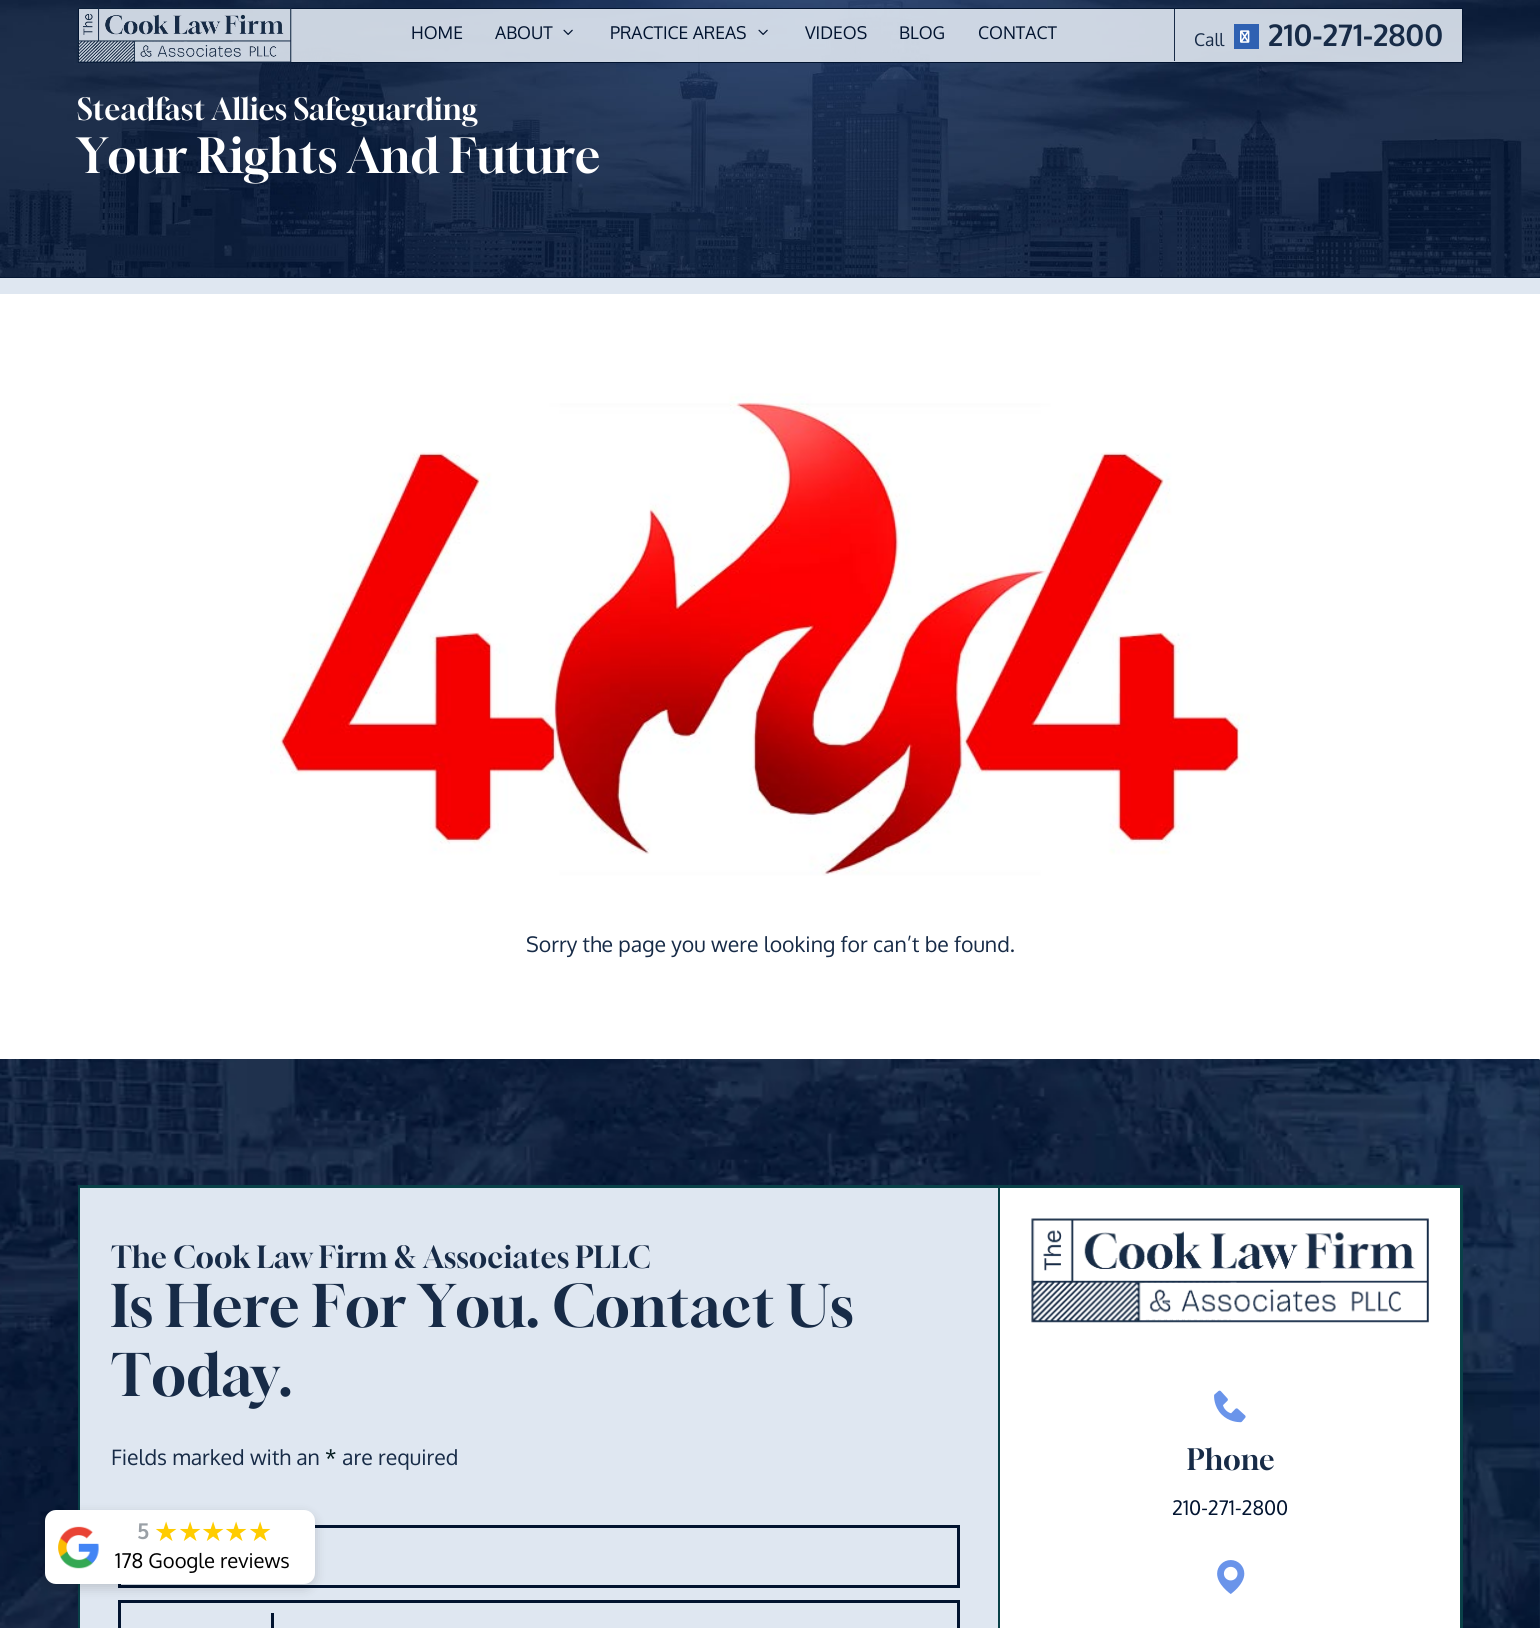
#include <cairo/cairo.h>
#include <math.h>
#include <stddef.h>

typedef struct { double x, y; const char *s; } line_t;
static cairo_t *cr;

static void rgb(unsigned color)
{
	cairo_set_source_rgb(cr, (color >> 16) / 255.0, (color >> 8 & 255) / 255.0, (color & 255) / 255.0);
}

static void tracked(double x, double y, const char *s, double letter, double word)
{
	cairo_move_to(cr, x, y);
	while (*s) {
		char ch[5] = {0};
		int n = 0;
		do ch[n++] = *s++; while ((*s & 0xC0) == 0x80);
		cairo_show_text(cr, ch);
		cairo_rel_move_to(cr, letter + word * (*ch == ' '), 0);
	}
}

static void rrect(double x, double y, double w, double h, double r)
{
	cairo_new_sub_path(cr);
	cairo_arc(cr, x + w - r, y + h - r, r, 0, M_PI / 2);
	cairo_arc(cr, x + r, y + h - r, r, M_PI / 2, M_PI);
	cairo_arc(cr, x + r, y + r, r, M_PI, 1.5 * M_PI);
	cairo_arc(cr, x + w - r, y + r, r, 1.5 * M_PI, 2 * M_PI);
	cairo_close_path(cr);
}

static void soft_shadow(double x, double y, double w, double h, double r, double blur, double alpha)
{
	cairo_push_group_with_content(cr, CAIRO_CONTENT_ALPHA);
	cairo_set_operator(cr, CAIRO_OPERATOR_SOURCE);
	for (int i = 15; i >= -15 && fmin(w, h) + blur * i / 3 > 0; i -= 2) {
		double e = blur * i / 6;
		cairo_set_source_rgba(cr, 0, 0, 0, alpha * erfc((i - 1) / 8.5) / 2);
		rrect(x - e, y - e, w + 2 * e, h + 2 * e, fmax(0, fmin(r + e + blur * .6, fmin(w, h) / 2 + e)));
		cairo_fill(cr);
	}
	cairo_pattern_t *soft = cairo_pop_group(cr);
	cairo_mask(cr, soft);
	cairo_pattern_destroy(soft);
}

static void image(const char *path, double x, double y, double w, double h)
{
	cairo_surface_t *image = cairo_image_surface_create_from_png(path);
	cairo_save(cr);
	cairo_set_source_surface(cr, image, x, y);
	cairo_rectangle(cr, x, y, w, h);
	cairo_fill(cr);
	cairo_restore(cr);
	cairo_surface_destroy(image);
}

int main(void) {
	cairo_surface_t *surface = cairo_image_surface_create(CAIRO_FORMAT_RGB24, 1540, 1628);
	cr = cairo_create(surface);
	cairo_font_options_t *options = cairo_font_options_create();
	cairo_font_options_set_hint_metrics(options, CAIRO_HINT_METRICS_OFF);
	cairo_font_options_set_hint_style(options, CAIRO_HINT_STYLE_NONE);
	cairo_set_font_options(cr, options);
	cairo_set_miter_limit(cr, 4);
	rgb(0xffffff);
	cairo_paint(cr);
	rgb(0x021430);
	cairo_rectangle(cr, 0, 277, 1540, 1);
	cairo_fill(cr);
	image("img/5.png", 0, 0, 1540, 278);
	cairo_set_source_rgba(cr, 0.875, 0.906, 0.945, 0.9);
	cairo_rectangle(cr, 78.5, 8.5, 1384, 54);
	cairo_fill_preserve(cr);
	rgb(0x021430);
	cairo_set_line_width(cr, 1);
	cairo_stroke(cr);
	image("img/1.png", 76, 7, 216, 56);
	image("img/2.png", 563, 29, 10, 6);
	image("img/3.png", 758, 29, 10, 6);
	rgb(0x172b47);
	cairo_rectangle(cr, 1174, 9, 1, 52);
	cairo_fill(cr);
	rgb(0x2f61b2);
	cairo_rectangle(cr, 1234, 24, 25, 25);
	cairo_fill(cr);
	image("img/4.png", 1240, 30, 10, 13);
	rgb(0xdfe7f1);
	cairo_rectangle(cr, 0, 278, 1540, 16);
	cairo_fill(cr);
	image("img/6.png", 270, 393, 980, 483);
	rgb(0x172b47);
	cairo_rectangle(cr, 1538, 1060, 2, 568);
	cairo_fill(cr);
	image("img/7.png", 0, 1059, 1540, 569);
	cairo_rectangle(cr, 79.5, 1186.5, 1382, 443);
	rgb(0x094148);
	cairo_set_line_width(cr, 3);
	cairo_stroke(cr);
	rgb(0xdfe7f1);
	cairo_rectangle(cr, 80, 1188, 918, 440);
	cairo_fill(cr);
	rgb(0x094148);
	cairo_rectangle(cr, 998, 1188, 2, 440);
	cairo_fill(cr);
	cairo_rectangle(cr, 119.5, 1526.5, 839, 60);
	rgb(0x021430);
	cairo_stroke(cr);
	cairo_rectangle(cr, 271, 1613, 3, 15);
	cairo_fill(cr);
	cairo_rectangle(cr, 119.5, 1601.5, 839, 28);
	cairo_stroke(cr);
	rgb(0xffffff);
	cairo_rectangle(cr, 1000, 1188, 460, 440);
	cairo_fill(cr);
	image("img/8.png", 1031, 1218, 398, 105);
	image("img/9.png", 1214, 1390, 32, 33);
	image("img/10.png", 1217, 1560, 28, 34);
	rgb(0x000000);
	soft_shadow(45, 1514, 270, 74, 11, 6, 0.16);
	rgb(0xffffff);
	rrect(45, 1510, 270, 74, 11);
	cairo_fill(cr);
	image("img/11.png", 58, 1526, 41, 43);
	cairo_select_font_face(cr, "Oxygen", CAIRO_FONT_SLANT_NORMAL, CAIRO_FONT_WEIGHT_NORMAL);
	cairo_set_font_size(cr, 17.5);
	rgb(0x021430);
	{
		static const line_t items[] = {
			{411, 39, "HOME"},
			{495, 39, "ABOUT"},
			{610, 39, "PRACTICE AREAS"},
			{805, 39, "VIDEOS"},
			{899, 39, "BLOG"},
			{978, 39, "CONTACT"},
		};
		for (size_t i = 0; i < sizeof items / sizeof *items; i++) {
			cairo_move_to(cr, items[i].x, items[i].y);
			cairo_show_text(cr, items[i].s);
		}
	}
	rgb(0x172b47);
	cairo_move_to(cr, 1194, 46);
	cairo_show_text(cr, "Call");
	cairo_select_font_face(cr, "Oxygen", CAIRO_FONT_SLANT_NORMAL, CAIRO_FONT_WEIGHT_BOLD);
	cairo_set_font_size(cr, 30);
	cairo_move_to(cr, 1268, 46);
	cairo_show_text(cr, "210-271-2800");
	cairo_select_font_face(cr, "Gloock", CAIRO_FONT_SLANT_NORMAL, CAIRO_FONT_WEIGHT_NORMAL);
	rgb(0xffffff);
	cairo_move_to(cr, 77, 120);
	cairo_show_text(cr, "Steadfast Allies Safeguarding");
	cairo_set_font_size(cr, 47.5);
	cairo_move_to(cr, 77, 173);
	cairo_show_text(cr, "Your Rights And Future");
	cairo_select_font_face(cr, "Oxygen", CAIRO_FONT_SLANT_NORMAL, CAIRO_FONT_WEIGHT_NORMAL);
	cairo_set_font_size(cr, 21.25);
	rgb(0x172b47);
	cairo_move_to(cr, 526, 952);
	cairo_show_text(cr, "Sorry the page you were looking for can’t be found.");
	cairo_select_font_face(cr, "Gloock", CAIRO_FONT_SLANT_NORMAL, CAIRO_FONT_WEIGHT_NORMAL);
	cairo_set_font_size(cr, 30);
	cairo_move_to(cr, 111, 1268);
	cairo_show_text(cr, "The Cook Law Firm & Associates PLLC");
	cairo_set_font_size(cr, 57.5);
	cairo_move_to(cr, 111, 1327);
	cairo_show_text(cr, "Is Here For You. Contact Us");
	cairo_move_to(cr, 111, 1396);
	cairo_show_text(cr, "Today.");
	cairo_select_font_face(cr, "Oxygen", CAIRO_FONT_SLANT_NORMAL, CAIRO_FONT_WEIGHT_NORMAL);
	cairo_set_font_size(cr, 21.25);
	cairo_move_to(cr, 111, 1465);
	cairo_show_text(cr, "Fields marked with an");
	rgb(0x031a1d);
	cairo_move_to(cr, 325, 1465);
	cairo_show_text(cr, "*");
	rgb(0x172b47);
	cairo_move_to(cr, 342, 1465);
	cairo_show_text(cr, "are required");
	cairo_select_font_face(cr, "Gloock", CAIRO_FONT_SLANT_NORMAL, CAIRO_FONT_WEIGHT_NORMAL);
	cairo_set_font_size(cr, 29);
	cairo_move_to(cr, 1187, 1470);
	cairo_show_text(cr, "Phone");
	cairo_select_font_face(cr, "Oxygen", CAIRO_FONT_SLANT_NORMAL, CAIRO_FONT_WEIGHT_NORMAL);
	cairo_set_font_size(cr, 20);
	rgb(0x021430);
	cairo_move_to(cr, 1172, 1515);
	cairo_show_text(cr, "210-271-2800");
	cairo_select_font_face(cr, "Oxygen", CAIRO_FONT_SLANT_NORMAL, CAIRO_FONT_WEIGHT_BOLD);
	cairo_set_font_size(cr, 22);
	rgb(0x9aa0a6);
	cairo_move_to(cr, 137, 1539);
	cairo_show_text(cr, "5");
	cairo_select_font_face(cr, "DejaVu Sans", CAIRO_FONT_SLANT_NORMAL, CAIRO_FONT_WEIGHT_NORMAL);
	cairo_set_font_size(cr, 27);
	rgb(0xffcc00);
	{
		static const line_t items[] = {
			{154, 1541, "★"},
			{178, 1541, "★"},
			{201, 1541, "★"},
			{224, 1541, "★"},
			{248, 1541, "★"},
		};
		for (size_t i = 0; i < sizeof items / sizeof *items; i++) {
			tracked(items[i].x, items[i].y, items[i].s, -4, 0);
		}
	}
	cairo_select_font_face(cr, "Oxygen", CAIRO_FONT_SLANT_NORMAL, CAIRO_FONT_WEIGHT_NORMAL);
	cairo_set_font_size(cr, 20.25);
	rgb(0x000000);
	cairo_move_to(cr, 115, 1568);
	cairo_show_text(cr, "178 Google reviews");
	cairo_surface_write_to_png(surface, "page.png");
	cairo_font_options_destroy(options);
	cairo_destroy(cr);
	cairo_surface_destroy(surface);
	return 0;
}
